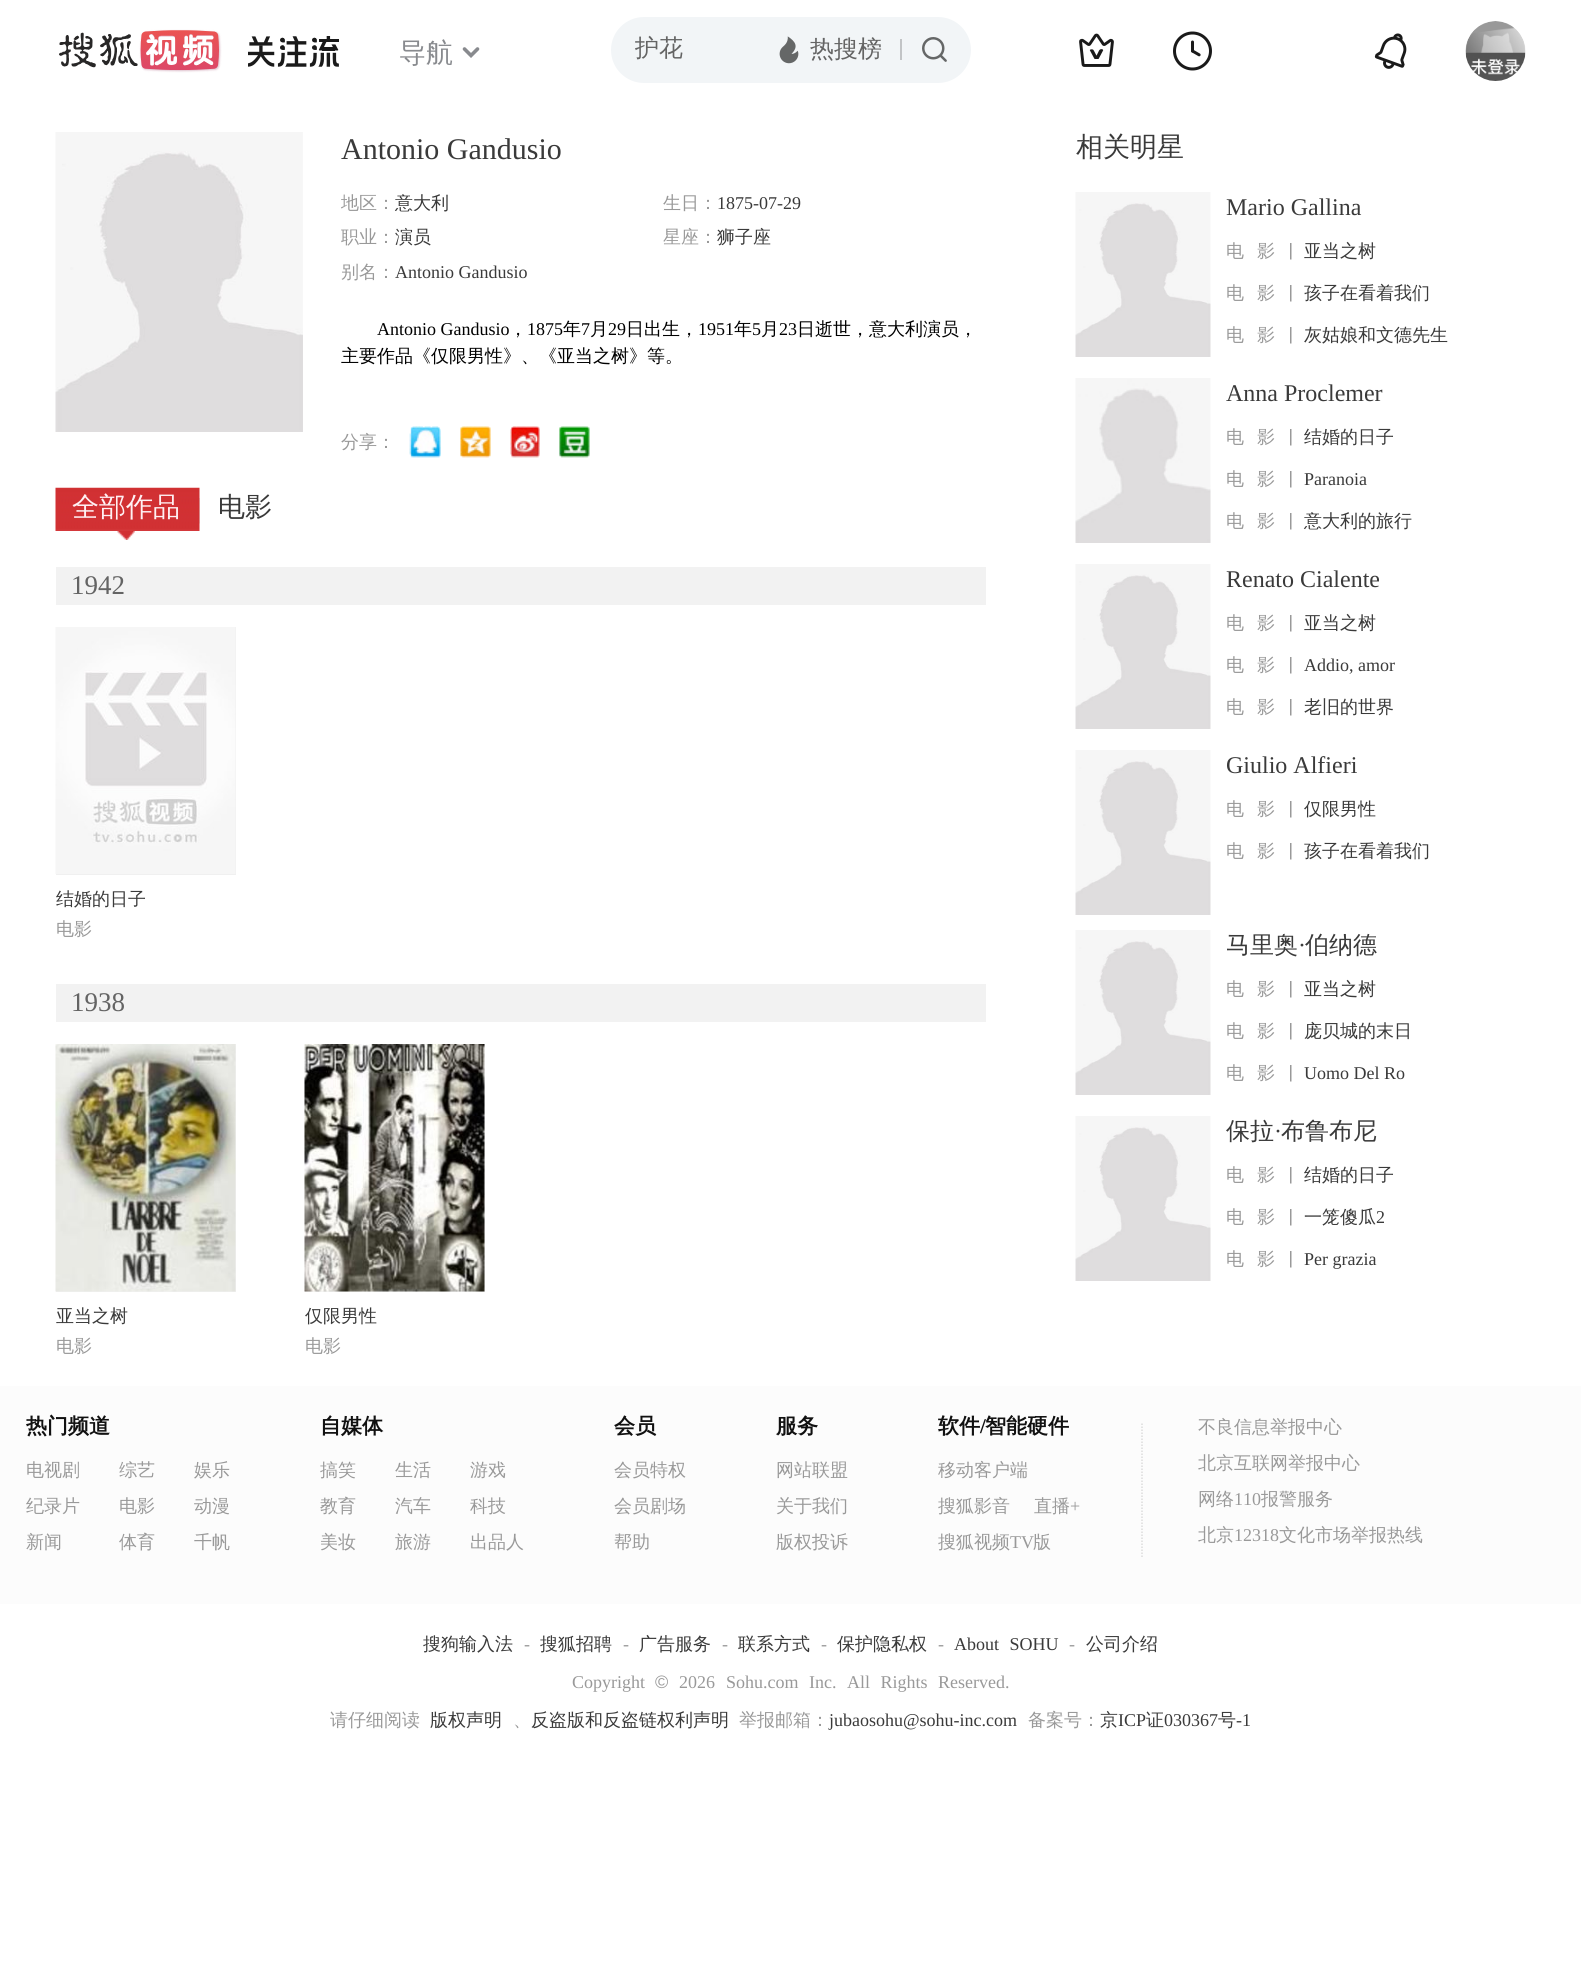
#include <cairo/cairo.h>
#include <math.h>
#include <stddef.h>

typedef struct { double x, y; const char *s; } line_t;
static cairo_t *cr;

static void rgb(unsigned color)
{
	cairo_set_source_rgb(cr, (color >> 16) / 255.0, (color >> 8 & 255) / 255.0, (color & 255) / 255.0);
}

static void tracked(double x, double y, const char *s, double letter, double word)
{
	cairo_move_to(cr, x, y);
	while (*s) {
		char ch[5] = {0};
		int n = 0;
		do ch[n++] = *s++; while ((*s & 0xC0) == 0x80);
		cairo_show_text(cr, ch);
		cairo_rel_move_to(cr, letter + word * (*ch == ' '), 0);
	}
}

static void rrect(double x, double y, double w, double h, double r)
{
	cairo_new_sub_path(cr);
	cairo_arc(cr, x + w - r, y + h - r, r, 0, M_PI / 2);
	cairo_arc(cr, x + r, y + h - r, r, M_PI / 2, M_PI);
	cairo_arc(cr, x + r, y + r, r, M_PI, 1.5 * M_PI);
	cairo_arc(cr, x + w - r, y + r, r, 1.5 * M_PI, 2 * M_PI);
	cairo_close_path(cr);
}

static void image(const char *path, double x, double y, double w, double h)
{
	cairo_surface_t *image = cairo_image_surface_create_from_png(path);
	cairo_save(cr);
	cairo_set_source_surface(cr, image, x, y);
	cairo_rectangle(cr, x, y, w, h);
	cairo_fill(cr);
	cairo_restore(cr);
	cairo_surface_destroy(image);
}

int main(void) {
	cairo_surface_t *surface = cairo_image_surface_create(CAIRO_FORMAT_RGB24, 1581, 1979);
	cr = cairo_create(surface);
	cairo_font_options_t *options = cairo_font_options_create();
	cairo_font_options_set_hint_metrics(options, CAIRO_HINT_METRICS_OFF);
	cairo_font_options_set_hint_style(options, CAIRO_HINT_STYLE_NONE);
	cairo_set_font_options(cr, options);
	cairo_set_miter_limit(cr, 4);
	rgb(0xffffff);
	cairo_paint(cr);
	image("img/1.png", 59, 29, 163, 44);
	image("img/2.png", 248, 36, 91, 31);
	cairo_new_path(cr);
	cairo_move_to(cr, 464.5, 49);
	cairo_line_to(cr, 471, 55.5);
	cairo_line_to(cr, 477.5, 49);
	rgb(0x888a8e);
	cairo_set_line_width(cr, 3.6);
	cairo_set_line_cap(cr, CAIRO_LINE_CAP_ROUND);
	cairo_stroke(cr);
	rgb(0xf2f5f7);
	rrect(611, 17, 360, 66, 33);
	cairo_fill(cr);
	image("img/3.png", 779, 36, 20, 28);
	rgb(0xc2c4c6);
	cairo_rectangle(cr, 900, 39, 2, 21);
	cairo_fill(cr);
	image("img/4.png", 922, 37, 25, 25);
	image("img/5.png", 1079, 33, 35, 34);
	image("img/6.png", 1173, 31, 39, 40);
	image("img/7.png", 1374, 33, 33, 36);
	image("img/8.png", 1465, 21, 61, 60);
	image("img/9.png", 55, 132, 248, 300);
	image("img/10.png", 409, 426, 32, 32);
	image("img/11.png", 460, 426, 31, 32);
	image("img/12.png", 510, 426, 30, 32);
	image("img/13.png", 559, 426, 31, 32);
	image("img/16.png", 199, 498, 1, 26);
	image("img/14.png", 55, 487, 145, 44);
	image("img/15.png", 117, 531, 18, 9);
	rgb(0xf2f2f2);
	cairo_rectangle(cr, 56, 567, 930, 38);
	cairo_fill(cr);
	rgb(0xf0f0f0);
	cairo_rectangle(cr, 56, 627, 180, 248);
	cairo_fill(cr);
	image("img/17.png", 55, 627, 181, 247);
	rgb(0xf2f2f2);
	cairo_rectangle(cr, 56, 984, 930, 38);
	cairo_fill(cr);
	rgb(0xf0f0f0);
	cairo_rectangle(cr, 56, 1044, 180, 248);
	cairo_fill(cr);
	image("img/18.png", 55, 1044, 181, 248);
	cairo_rectangle(cr, 305, 1044, 180, 248);
	cairo_fill(cr);
	image("img/19.png", 304, 1044, 181, 248);
	image("img/20.png", 1075, 192, 136, 165);
	image("img/21.png", 1290, 243, 2, 17);
	image("img/21.png", 1290, 285, 2, 17);
	image("img/21.png", 1290, 327, 2, 17);
	image("img/22.png", 1075, 378, 136, 165);
	image("img/21.png", 1290, 429, 2, 17);
	image("img/21.png", 1290, 471, 2, 17);
	image("img/21.png", 1290, 513, 2, 17);
	image("img/23.png", 1075, 564, 136, 165);
	image("img/21.png", 1290, 615, 2, 17);
	image("img/21.png", 1290, 657, 2, 17);
	image("img/21.png", 1290, 699, 2, 17);
	image("img/24.png", 1075, 750, 136, 165);
	image("img/21.png", 1290, 801, 2, 17);
	image("img/21.png", 1290, 843, 2, 17);
	image("img/24.png", 1075, 930, 136, 165);
	image("img/21.png", 1290, 981, 2, 17);
	image("img/21.png", 1290, 1023, 2, 17);
	image("img/21.png", 1290, 1065, 2, 17);
	image("img/25.png", 1075, 1116, 136, 165);
	image("img/21.png", 1290, 1167, 2, 17);
	image("img/21.png", 1290, 1209, 2, 17);
	image("img/21.png", 1290, 1251, 2, 17);
	rgb(0xfcfcfc);
	cairo_rectangle(cr, 0, 1386, 1581, 218);
	cairo_fill(cr);
	cairo_new_path(cr);
	cairo_move_to(cr, 1142, 1423.5);
	cairo_line_to(cr, 1142, 1558.5);
	rgb(0xdddddd);
	cairo_set_line_width(cr, 1.5);
	cairo_set_line_cap(cr, CAIRO_LINE_CAP_BUTT);
	cairo_set_dash(cr, (double[]){1.5, 1.5}, 2, 0);
	cairo_stroke(cr);
	cairo_select_font_face(cr, "WenQuanYi Zen Hei Medium", CAIRO_FONT_SLANT_NORMAL, CAIRO_FONT_WEIGHT_NORMAL);
	cairo_set_font_size(cr, 27);
	rgb(0x888a8e);
	cairo_move_to(cr, 399, 62);
	cairo_show_text(cr, "导航");
	cairo_save(cr);
	cairo_rectangle(cr, 635, 35, 136, 31);
	cairo_clip(cr);
	cairo_set_font_size(cr, 24);
	rgb(0x646464);
	cairo_move_to(cr, 635, 56);
	cairo_show_text(cr, "护花");
	cairo_restore(cr);
	cairo_set_font_size(cr, 24);
	rgb(0x646464);
	cairo_move_to(cr, 810, 57);
	cairo_show_text(cr, "热搜榜");
	cairo_select_font_face(cr, "Liberation Serif", CAIRO_FONT_SLANT_NORMAL, CAIRO_FONT_WEIGHT_NORMAL);
	cairo_set_font_size(cr, 30);
	rgb(0x3a3a3a);
	cairo_move_to(cr, 341, 159);
	cairo_show_text(cr, "Antonio Gandusio");
	cairo_select_font_face(cr, "WenQuanYi Zen Hei Medium", CAIRO_FONT_SLANT_NORMAL, CAIRO_FONT_WEIGHT_NORMAL);
	cairo_set_font_size(cr, 18);
	rgb(0x999999);
	cairo_move_to(cr, 341, 209);
	cairo_show_text(cr, "地区：");
	rgb(0x3a3a3a);
	cairo_move_to(cr, 395, 209);
	cairo_show_text(cr, "意大利");
	rgb(0x999999);
	cairo_move_to(cr, 663, 209);
	cairo_show_text(cr, "生日：");
	cairo_select_font_face(cr, "Liberation Serif", CAIRO_FONT_SLANT_NORMAL, CAIRO_FONT_WEIGHT_NORMAL);
	rgb(0x3a3a3a);
	cairo_move_to(cr, 717, 209);
	cairo_show_text(cr, "1875-07-29");
	cairo_save(cr);
	cairo_rectangle(cr, 341, 224, 315, 27);
	cairo_clip(cr);
	cairo_select_font_face(cr, "WenQuanYi Zen Hei Medium", CAIRO_FONT_SLANT_NORMAL, CAIRO_FONT_WEIGHT_NORMAL);
	rgb(0x999999);
	cairo_move_to(cr, 341, 243);
	cairo_show_text(cr, "职业：");
	cairo_restore(cr);
	cairo_select_font_face(cr, "WenQuanYi Zen Hei Medium", CAIRO_FONT_SLANT_NORMAL, CAIRO_FONT_WEIGHT_NORMAL);
	cairo_move_to(cr, 395, 243);
	cairo_show_text(cr, "演员");
	rgb(0x999999);
	cairo_move_to(cr, 663, 243);
	cairo_show_text(cr, "星座：");
	rgb(0x3a3a3a);
	cairo_move_to(cr, 717, 243);
	cairo_show_text(cr, "狮子座");
	rgb(0x999999);
	cairo_move_to(cr, 341, 278);
	cairo_show_text(cr, "别名：");
	cairo_select_font_face(cr, "Liberation Serif", CAIRO_FONT_SLANT_NORMAL, CAIRO_FONT_WEIGHT_NORMAL);
	rgb(0x3a3a3a);
	cairo_move_to(cr, 395, 278);
	cairo_show_text(cr, "Antonio Gandusio");
	rgb(0x000000);
	cairo_move_to(cr, 377, 335);
	cairo_show_text(cr, "Antonio Gandusio");
	cairo_select_font_face(cr, "WenQuanYi Zen Hei Medium", CAIRO_FONT_SLANT_NORMAL, CAIRO_FONT_WEIGHT_NORMAL);
	cairo_move_to(cr, 509, 335);
	cairo_show_text(cr, "，");
	cairo_select_font_face(cr, "Liberation Serif", CAIRO_FONT_SLANT_NORMAL, CAIRO_FONT_WEIGHT_NORMAL);
	cairo_move_to(cr, 527, 335);
	cairo_show_text(cr, "1875");
	cairo_select_font_face(cr, "WenQuanYi Zen Hei Medium", CAIRO_FONT_SLANT_NORMAL, CAIRO_FONT_WEIGHT_NORMAL);
	cairo_move_to(cr, 563, 335);
	cairo_show_text(cr, "年");
	cairo_select_font_face(cr, "Liberation Serif", CAIRO_FONT_SLANT_NORMAL, CAIRO_FONT_WEIGHT_NORMAL);
	cairo_move_to(cr, 581, 335);
	cairo_show_text(cr, "7");
	cairo_select_font_face(cr, "WenQuanYi Zen Hei Medium", CAIRO_FONT_SLANT_NORMAL, CAIRO_FONT_WEIGHT_NORMAL);
	cairo_move_to(cr, 590, 335);
	cairo_show_text(cr, "月");
	cairo_select_font_face(cr, "Liberation Serif", CAIRO_FONT_SLANT_NORMAL, CAIRO_FONT_WEIGHT_NORMAL);
	cairo_move_to(cr, 608, 335);
	cairo_show_text(cr, "29");
	cairo_select_font_face(cr, "WenQuanYi Zen Hei Medium", CAIRO_FONT_SLANT_NORMAL, CAIRO_FONT_WEIGHT_NORMAL);
	cairo_move_to(cr, 626, 335);
	cairo_show_text(cr, "日出生，");
	cairo_select_font_face(cr, "Liberation Serif", CAIRO_FONT_SLANT_NORMAL, CAIRO_FONT_WEIGHT_NORMAL);
	cairo_move_to(cr, 698, 335);
	cairo_show_text(cr, "1951");
	cairo_select_font_face(cr, "WenQuanYi Zen Hei Medium", CAIRO_FONT_SLANT_NORMAL, CAIRO_FONT_WEIGHT_NORMAL);
	cairo_move_to(cr, 734, 335);
	cairo_show_text(cr, "年");
	cairo_select_font_face(cr, "Liberation Serif", CAIRO_FONT_SLANT_NORMAL, CAIRO_FONT_WEIGHT_NORMAL);
	cairo_move_to(cr, 752, 335);
	cairo_show_text(cr, "5");
	cairo_select_font_face(cr, "WenQuanYi Zen Hei Medium", CAIRO_FONT_SLANT_NORMAL, CAIRO_FONT_WEIGHT_NORMAL);
	cairo_move_to(cr, 761, 335);
	cairo_show_text(cr, "月");
	cairo_select_font_face(cr, "Liberation Serif", CAIRO_FONT_SLANT_NORMAL, CAIRO_FONT_WEIGHT_NORMAL);
	cairo_move_to(cr, 779, 335);
	cairo_show_text(cr, "23");
	cairo_select_font_face(cr, "WenQuanYi Zen Hei Medium", CAIRO_FONT_SLANT_NORMAL, CAIRO_FONT_WEIGHT_NORMAL);
	cairo_move_to(cr, 797, 335);
	cairo_show_text(cr, "日逝世，意大利演员，");
	cairo_move_to(cr, 341, 362);
	cairo_show_text(cr, "主要作品《仅限男性》、《亚当之树》等。");
	rgb(0x999999);
	cairo_move_to(cr, 341, 448);
	cairo_show_text(cr, "分享：");
	cairo_set_font_size(cr, 27);
	rgb(0xfff0f3);
	cairo_move_to(cr, 72, 516);
	cairo_show_text(cr, "全部作品");
	rgb(0x3a3a3a);
	cairo_move_to(cr, 218, 516);
	cairo_show_text(cr, "电影");
	cairo_select_font_face(cr, "Liberation Serif", CAIRO_FONT_SLANT_NORMAL, CAIRO_FONT_WEIGHT_NORMAL);
	rgb(0x646464);
	cairo_move_to(cr, 71, 594);
	cairo_show_text(cr, "1942");
	cairo_save(cr);
	cairo_rectangle(cr, 56, 885, 180, 27);
	cairo_clip(cr);
	cairo_select_font_face(cr, "WenQuanYi Zen Hei Medium", CAIRO_FONT_SLANT_NORMAL, CAIRO_FONT_WEIGHT_NORMAL);
	cairo_set_font_size(cr, 18);
	rgb(0x3a3a3a);
	cairo_move_to(cr, 56, 905);
	cairo_show_text(cr, "结婚的日子");
	cairo_restore(cr);
	cairo_select_font_face(cr, "WenQuanYi Zen Hei Medium", CAIRO_FONT_SLANT_NORMAL, CAIRO_FONT_WEIGHT_NORMAL);
	cairo_set_font_size(cr, 18);
	rgb(0x999999);
	cairo_move_to(cr, 56, 935);
	cairo_show_text(cr, "电影");
	cairo_select_font_face(cr, "Liberation Serif", CAIRO_FONT_SLANT_NORMAL, CAIRO_FONT_WEIGHT_NORMAL);
	cairo_set_font_size(cr, 27);
	rgb(0x646464);
	cairo_move_to(cr, 71, 1011);
	cairo_show_text(cr, "1938");
	cairo_select_font_face(cr, "WenQuanYi Zen Hei Medium", CAIRO_FONT_SLANT_NORMAL, CAIRO_FONT_WEIGHT_NORMAL);
	cairo_set_font_size(cr, 18);
	rgb(0x3a3a3a);
	cairo_move_to(cr, 56, 1322);
	cairo_show_text(cr, "亚当之树");
	rgb(0x999999);
	cairo_move_to(cr, 56, 1352);
	cairo_show_text(cr, "电影");
	rgb(0x3a3a3a);
	cairo_move_to(cr, 305, 1322);
	cairo_show_text(cr, "仅限男性");
	rgb(0x999999);
	cairo_move_to(cr, 305, 1352);
	cairo_show_text(cr, "电影");
	cairo_set_font_size(cr, 27);
	rgb(0x3a3a3a);
	cairo_move_to(cr, 1076, 156);
	cairo_show_text(cr, "相关明星");
	cairo_select_font_face(cr, "Liberation Serif", CAIRO_FONT_SLANT_NORMAL, CAIRO_FONT_WEIGHT_NORMAL);
	cairo_set_font_size(cr, 24);
	cairo_move_to(cr, 1226, 215);
	cairo_show_text(cr, "Mario Gallina");
	cairo_select_font_face(cr, "WenQuanYi Zen Hei Medium", CAIRO_FONT_SLANT_NORMAL, CAIRO_FONT_WEIGHT_NORMAL);
	cairo_set_font_size(cr, 18);
	rgb(0x999999);
	cairo_move_to(cr, 1226, 257);
	cairo_show_text(cr, "电");
	cairo_move_to(cr, 1257, 257);
	cairo_show_text(cr, "影");
	rgb(0x3a3a3a);
	cairo_move_to(cr, 1304, 257);
	cairo_show_text(cr, "亚当之树");
	rgb(0x999999);
	cairo_move_to(cr, 1226, 299);
	cairo_show_text(cr, "电");
	cairo_move_to(cr, 1257, 299);
	cairo_show_text(cr, "影");
	rgb(0x3a3a3a);
	cairo_move_to(cr, 1304, 299);
	cairo_show_text(cr, "孩子在看着我们");
	rgb(0x999999);
	cairo_move_to(cr, 1226, 341);
	cairo_show_text(cr, "电");
	cairo_move_to(cr, 1257, 341);
	cairo_show_text(cr, "影");
	rgb(0x3a3a3a);
	cairo_move_to(cr, 1304, 341);
	cairo_show_text(cr, "灰姑娘和文德先生");
	cairo_select_font_face(cr, "Liberation Serif", CAIRO_FONT_SLANT_NORMAL, CAIRO_FONT_WEIGHT_NORMAL);
	cairo_set_font_size(cr, 24);
	cairo_move_to(cr, 1226, 401);
	cairo_show_text(cr, "Anna Proclemer");
	cairo_select_font_face(cr, "WenQuanYi Zen Hei Medium", CAIRO_FONT_SLANT_NORMAL, CAIRO_FONT_WEIGHT_NORMAL);
	cairo_set_font_size(cr, 18);
	rgb(0x999999);
	cairo_move_to(cr, 1226, 443);
	cairo_show_text(cr, "电");
	cairo_move_to(cr, 1257, 443);
	cairo_show_text(cr, "影");
	rgb(0x3a3a3a);
	cairo_move_to(cr, 1304, 443);
	cairo_show_text(cr, "结婚的日子");
	rgb(0x999999);
	cairo_move_to(cr, 1226, 485);
	cairo_show_text(cr, "电");
	cairo_move_to(cr, 1257, 485);
	cairo_show_text(cr, "影");
	cairo_select_font_face(cr, "Liberation Serif", CAIRO_FONT_SLANT_NORMAL, CAIRO_FONT_WEIGHT_NORMAL);
	rgb(0x3a3a3a);
	cairo_move_to(cr, 1304, 485);
	cairo_show_text(cr, "Paranoia");
	cairo_select_font_face(cr, "WenQuanYi Zen Hei Medium", CAIRO_FONT_SLANT_NORMAL, CAIRO_FONT_WEIGHT_NORMAL);
	rgb(0x999999);
	cairo_move_to(cr, 1226, 527);
	cairo_show_text(cr, "电");
	cairo_move_to(cr, 1257, 527);
	cairo_show_text(cr, "影");
	rgb(0x3a3a3a);
	cairo_move_to(cr, 1304, 527);
	cairo_show_text(cr, "意大利的旅行");
	cairo_select_font_face(cr, "Liberation Serif", CAIRO_FONT_SLANT_NORMAL, CAIRO_FONT_WEIGHT_NORMAL);
	cairo_set_font_size(cr, 24);
	cairo_move_to(cr, 1226, 587);
	cairo_show_text(cr, "Renato Cialente");
	cairo_select_font_face(cr, "WenQuanYi Zen Hei Medium", CAIRO_FONT_SLANT_NORMAL, CAIRO_FONT_WEIGHT_NORMAL);
	cairo_set_font_size(cr, 18);
	rgb(0x999999);
	cairo_move_to(cr, 1226, 629);
	cairo_show_text(cr, "电");
	cairo_move_to(cr, 1257, 629);
	cairo_show_text(cr, "影");
	rgb(0x3a3a3a);
	cairo_move_to(cr, 1304, 629);
	cairo_show_text(cr, "亚当之树");
	rgb(0x999999);
	cairo_move_to(cr, 1226, 671);
	cairo_show_text(cr, "电");
	cairo_move_to(cr, 1257, 671);
	cairo_show_text(cr, "影");
	cairo_select_font_face(cr, "Liberation Serif", CAIRO_FONT_SLANT_NORMAL, CAIRO_FONT_WEIGHT_NORMAL);
	rgb(0x3a3a3a);
	cairo_move_to(cr, 1304, 671);
	cairo_show_text(cr, "Addio, amor");
	cairo_select_font_face(cr, "WenQuanYi Zen Hei Medium", CAIRO_FONT_SLANT_NORMAL, CAIRO_FONT_WEIGHT_NORMAL);
	rgb(0x999999);
	cairo_move_to(cr, 1226, 713);
	cairo_show_text(cr, "电");
	cairo_move_to(cr, 1257, 713);
	cairo_show_text(cr, "影");
	rgb(0x3a3a3a);
	cairo_move_to(cr, 1304, 713);
	cairo_show_text(cr, "老旧的世界");
	cairo_select_font_face(cr, "Liberation Serif", CAIRO_FONT_SLANT_NORMAL, CAIRO_FONT_WEIGHT_NORMAL);
	cairo_set_font_size(cr, 24);
	cairo_move_to(cr, 1226, 773);
	cairo_show_text(cr, "Giulio Alfieri");
	cairo_select_font_face(cr, "WenQuanYi Zen Hei Medium", CAIRO_FONT_SLANT_NORMAL, CAIRO_FONT_WEIGHT_NORMAL);
	cairo_set_font_size(cr, 18);
	rgb(0x999999);
	cairo_move_to(cr, 1226, 815);
	cairo_show_text(cr, "电");
	cairo_move_to(cr, 1257, 815);
	cairo_show_text(cr, "影");
	rgb(0x3a3a3a);
	cairo_move_to(cr, 1304, 815);
	cairo_show_text(cr, "仅限男性");
	rgb(0x999999);
	cairo_move_to(cr, 1226, 857);
	cairo_show_text(cr, "电");
	cairo_move_to(cr, 1257, 857);
	cairo_show_text(cr, "影");
	rgb(0x3a3a3a);
	cairo_move_to(cr, 1304, 857);
	cairo_show_text(cr, "孩子在看着我们");
	cairo_set_font_size(cr, 24);
	cairo_move_to(cr, 1226, 953);
	cairo_show_text(cr, "马里奥");
	cairo_select_font_face(cr, "Liberation Serif", CAIRO_FONT_SLANT_NORMAL, CAIRO_FONT_WEIGHT_NORMAL);
	cairo_move_to(cr, 1298, 953);
	cairo_show_text(cr, "·");
	cairo_select_font_face(cr, "WenQuanYi Zen Hei Medium", CAIRO_FONT_SLANT_NORMAL, CAIRO_FONT_WEIGHT_NORMAL);
	cairo_move_to(cr, 1305, 953);
	cairo_show_text(cr, "伯纳德");
	cairo_set_font_size(cr, 18);
	rgb(0x999999);
	cairo_move_to(cr, 1226, 995);
	cairo_show_text(cr, "电");
	cairo_move_to(cr, 1257, 995);
	cairo_show_text(cr, "影");
	rgb(0x3a3a3a);
	cairo_move_to(cr, 1304, 995);
	cairo_show_text(cr, "亚当之树");
	rgb(0x999999);
	cairo_move_to(cr, 1226, 1037);
	cairo_show_text(cr, "电");
	cairo_move_to(cr, 1257, 1037);
	cairo_show_text(cr, "影");
	rgb(0x3a3a3a);
	cairo_move_to(cr, 1304, 1037);
	cairo_show_text(cr, "庞贝城的末日");
	rgb(0x999999);
	cairo_move_to(cr, 1226, 1079);
	cairo_show_text(cr, "电");
	cairo_move_to(cr, 1257, 1079);
	cairo_show_text(cr, "影");
	cairo_select_font_face(cr, "Liberation Serif", CAIRO_FONT_SLANT_NORMAL, CAIRO_FONT_WEIGHT_NORMAL);
	rgb(0x3a3a3a);
	cairo_move_to(cr, 1304, 1079);
	cairo_show_text(cr, "Uomo Del Ro");
	cairo_select_font_face(cr, "WenQuanYi Zen Hei Medium", CAIRO_FONT_SLANT_NORMAL, CAIRO_FONT_WEIGHT_NORMAL);
	cairo_set_font_size(cr, 24);
	cairo_move_to(cr, 1226, 1139);
	cairo_show_text(cr, "保拉");
	cairo_select_font_face(cr, "Liberation Serif", CAIRO_FONT_SLANT_NORMAL, CAIRO_FONT_WEIGHT_NORMAL);
	cairo_move_to(cr, 1274, 1139);
	cairo_show_text(cr, "·");
	cairo_select_font_face(cr, "WenQuanYi Zen Hei Medium", CAIRO_FONT_SLANT_NORMAL, CAIRO_FONT_WEIGHT_NORMAL);
	cairo_move_to(cr, 1281, 1139);
	cairo_show_text(cr, "布鲁布尼");
	cairo_set_font_size(cr, 18);
	rgb(0x999999);
	cairo_move_to(cr, 1226, 1181);
	cairo_show_text(cr, "电");
	cairo_move_to(cr, 1257, 1181);
	cairo_show_text(cr, "影");
	rgb(0x3a3a3a);
	cairo_move_to(cr, 1304, 1181);
	cairo_show_text(cr, "结婚的日子");
	rgb(0x999999);
	cairo_move_to(cr, 1226, 1223);
	cairo_show_text(cr, "电");
	cairo_move_to(cr, 1257, 1223);
	cairo_show_text(cr, "影");
	rgb(0x3a3a3a);
	cairo_move_to(cr, 1304, 1223);
	cairo_show_text(cr, "一笼傻瓜");
	cairo_select_font_face(cr, "Liberation Serif", CAIRO_FONT_SLANT_NORMAL, CAIRO_FONT_WEIGHT_NORMAL);
	cairo_move_to(cr, 1376, 1223);
	cairo_show_text(cr, "2");
	cairo_select_font_face(cr, "WenQuanYi Zen Hei Medium", CAIRO_FONT_SLANT_NORMAL, CAIRO_FONT_WEIGHT_NORMAL);
	rgb(0x999999);
	cairo_move_to(cr, 1226, 1265);
	cairo_show_text(cr, "电");
	cairo_move_to(cr, 1257, 1265);
	cairo_show_text(cr, "影");
	cairo_select_font_face(cr, "Liberation Serif", CAIRO_FONT_SLANT_NORMAL, CAIRO_FONT_WEIGHT_NORMAL);
	rgb(0x3a3a3a);
	cairo_move_to(cr, 1304, 1265);
	cairo_show_text(cr, "Per grazia");
	cairo_select_font_face(cr, "WenQuanYi Zen Hei", CAIRO_FONT_SLANT_NORMAL, CAIRO_FONT_WEIGHT_BOLD);
	cairo_set_font_size(cr, 21);
	rgb(0x111111);
	cairo_move_to(cr, 26, 1433);
	cairo_show_text(cr, "热门频道");
	cairo_select_font_face(cr, "WenQuanYi Zen Hei Medium", CAIRO_FONT_SLANT_NORMAL, CAIRO_FONT_WEIGHT_NORMAL);
	cairo_set_font_size(cr, 18);
	rgb(0x999999);
	{
		static const line_t items[] = {
			{26, 1476, "电视剧"},
			{26, 1512, "纪录片"},
			{26, 1548, "新闻"},
			{119, 1476, "综艺"},
			{119, 1512, "电影"},
			{119, 1548, "体育"},
			{194, 1476, "娱乐"},
			{194, 1512, "动漫"},
			{194, 1548, "千帆"},
		};
		for (size_t i = 0; i < sizeof items / sizeof *items; i++) {
			cairo_move_to(cr, items[i].x, items[i].y);
			cairo_show_text(cr, items[i].s);
		}
	}
	cairo_select_font_face(cr, "WenQuanYi Zen Hei", CAIRO_FONT_SLANT_NORMAL, CAIRO_FONT_WEIGHT_BOLD);
	cairo_set_font_size(cr, 21);
	rgb(0x111111);
	cairo_move_to(cr, 320, 1433);
	cairo_show_text(cr, "自媒体");
	cairo_select_font_face(cr, "WenQuanYi Zen Hei Medium", CAIRO_FONT_SLANT_NORMAL, CAIRO_FONT_WEIGHT_NORMAL);
	cairo_set_font_size(cr, 18);
	rgb(0x999999);
	{
		static const line_t items[] = {
			{320, 1476, "搞笑"},
			{320, 1512, "教育"},
			{320, 1548, "美妆"},
			{395, 1476, "生活"},
			{395, 1512, "汽车"},
			{395, 1548, "旅游"},
			{470, 1476, "游戏"},
			{470, 1512, "科技"},
			{470, 1548, "出品人"},
		};
		for (size_t i = 0; i < sizeof items / sizeof *items; i++) {
			cairo_move_to(cr, items[i].x, items[i].y);
			cairo_show_text(cr, items[i].s);
		}
	}
	cairo_select_font_face(cr, "WenQuanYi Zen Hei", CAIRO_FONT_SLANT_NORMAL, CAIRO_FONT_WEIGHT_BOLD);
	cairo_set_font_size(cr, 21);
	rgb(0x111111);
	cairo_move_to(cr, 614, 1433);
	cairo_show_text(cr, "会员");
	cairo_select_font_face(cr, "WenQuanYi Zen Hei Medium", CAIRO_FONT_SLANT_NORMAL, CAIRO_FONT_WEIGHT_NORMAL);
	cairo_set_font_size(cr, 18);
	rgb(0x999999);
	{
		static const line_t items[] = {
			{614, 1476, "会员特权"},
			{614, 1512, "会员剧场"},
			{614, 1548, "帮助"},
		};
		for (size_t i = 0; i < sizeof items / sizeof *items; i++) {
			cairo_move_to(cr, items[i].x, items[i].y);
			cairo_show_text(cr, items[i].s);
		}
	}
	cairo_select_font_face(cr, "WenQuanYi Zen Hei", CAIRO_FONT_SLANT_NORMAL, CAIRO_FONT_WEIGHT_BOLD);
	cairo_set_font_size(cr, 21);
	rgb(0x111111);
	cairo_move_to(cr, 776, 1433);
	cairo_show_text(cr, "服务");
	cairo_select_font_face(cr, "WenQuanYi Zen Hei Medium", CAIRO_FONT_SLANT_NORMAL, CAIRO_FONT_WEIGHT_NORMAL);
	cairo_set_font_size(cr, 18);
	rgb(0x999999);
	{
		static const line_t items[] = {
			{776, 1476, "网站联盟"},
			{776, 1512, "关于我们"},
			{776, 1548, "版权投诉"},
		};
		for (size_t i = 0; i < sizeof items / sizeof *items; i++) {
			cairo_move_to(cr, items[i].x, items[i].y);
			cairo_show_text(cr, items[i].s);
		}
	}
	cairo_select_font_face(cr, "WenQuanYi Zen Hei", CAIRO_FONT_SLANT_NORMAL, CAIRO_FONT_WEIGHT_BOLD);
	cairo_set_font_size(cr, 21);
	rgb(0x111111);
	cairo_move_to(cr, 938, 1433);
	cairo_show_text(cr, "软件");
	cairo_select_font_face(cr, "Liberation Serif", CAIRO_FONT_SLANT_NORMAL, CAIRO_FONT_WEIGHT_BOLD);
	cairo_move_to(cr, 980, 1433);
	cairo_show_text(cr, "/");
	cairo_select_font_face(cr, "WenQuanYi Zen Hei", CAIRO_FONT_SLANT_NORMAL, CAIRO_FONT_WEIGHT_BOLD);
	cairo_move_to(cr, 985, 1433);
	cairo_show_text(cr, "智能硬件");
	cairo_select_font_face(cr, "WenQuanYi Zen Hei Medium", CAIRO_FONT_SLANT_NORMAL, CAIRO_FONT_WEIGHT_NORMAL);
	cairo_set_font_size(cr, 18);
	rgb(0x999999);
	{
		static const line_t items[] = {
			{938, 1476, "移动客户端"},
			{938, 1512, "搜狐影音"},
			{1034, 1512, "直播"},
		};
		for (size_t i = 0; i < sizeof items / sizeof *items; i++) {
			cairo_move_to(cr, items[i].x, items[i].y);
			cairo_show_text(cr, items[i].s);
		}
	}
	cairo_select_font_face(cr, "Liberation Serif", CAIRO_FONT_SLANT_NORMAL, CAIRO_FONT_WEIGHT_NORMAL);
	cairo_move_to(cr, 1070, 1512);
	cairo_show_text(cr, "+");
	cairo_select_font_face(cr, "WenQuanYi Zen Hei Medium", CAIRO_FONT_SLANT_NORMAL, CAIRO_FONT_WEIGHT_NORMAL);
	cairo_move_to(cr, 938, 1548);
	cairo_show_text(cr, "搜狐视频");
	cairo_select_font_face(cr, "Liberation Serif", CAIRO_FONT_SLANT_NORMAL, CAIRO_FONT_WEIGHT_NORMAL);
	cairo_move_to(cr, 1010, 1548);
	cairo_show_text(cr, "TV");
	cairo_select_font_face(cr, "WenQuanYi Zen Hei Medium", CAIRO_FONT_SLANT_NORMAL, CAIRO_FONT_WEIGHT_NORMAL);
	{
		static const line_t items[] = {
			{1033, 1548, "版"},
			{1198, 1433, "不良信息举报中心"},
			{1198, 1469, "北京互联网举报中心"},
			{1198, 1505, "网络"},
		};
		for (size_t i = 0; i < sizeof items / sizeof *items; i++) {
			cairo_move_to(cr, items[i].x, items[i].y);
			cairo_show_text(cr, items[i].s);
		}
	}
	cairo_select_font_face(cr, "Liberation Serif", CAIRO_FONT_SLANT_NORMAL, CAIRO_FONT_WEIGHT_NORMAL);
	cairo_move_to(cr, 1234, 1505);
	cairo_show_text(cr, "110");
	cairo_select_font_face(cr, "WenQuanYi Zen Hei Medium", CAIRO_FONT_SLANT_NORMAL, CAIRO_FONT_WEIGHT_NORMAL);
	cairo_move_to(cr, 1261, 1505);
	cairo_show_text(cr, "报警服务");
	cairo_move_to(cr, 1198, 1541);
	cairo_show_text(cr, "北京");
	cairo_select_font_face(cr, "Liberation Serif", CAIRO_FONT_SLANT_NORMAL, CAIRO_FONT_WEIGHT_NORMAL);
	cairo_move_to(cr, 1234, 1541);
	cairo_show_text(cr, "12318");
	cairo_select_font_face(cr, "WenQuanYi Zen Hei Medium", CAIRO_FONT_SLANT_NORMAL, CAIRO_FONT_WEIGHT_NORMAL);
	cairo_move_to(cr, 1279, 1541);
	cairo_show_text(cr, "文化市场举报热线");
	rgb(0x3a3a3a);
	cairo_move_to(cr, 423, 1650);
	cairo_show_text(cr, "搜狗输入法");
	cairo_select_font_face(cr, "Liberation Serif", CAIRO_FONT_SLANT_NORMAL, CAIRO_FONT_WEIGHT_NORMAL);
	rgb(0x999999);
	cairo_move_to(cr, 524, 1650);
	cairo_show_text(cr, "-");
	cairo_select_font_face(cr, "WenQuanYi Zen Hei Medium", CAIRO_FONT_SLANT_NORMAL, CAIRO_FONT_WEIGHT_NORMAL);
	rgb(0x3a3a3a);
	cairo_move_to(cr, 540, 1650);
	cairo_show_text(cr, "搜狐招聘");
	cairo_select_font_face(cr, "Liberation Serif", CAIRO_FONT_SLANT_NORMAL, CAIRO_FONT_WEIGHT_NORMAL);
	rgb(0x999999);
	cairo_move_to(cr, 623, 1650);
	cairo_show_text(cr, "-");
	cairo_select_font_face(cr, "WenQuanYi Zen Hei Medium", CAIRO_FONT_SLANT_NORMAL, CAIRO_FONT_WEIGHT_NORMAL);
	rgb(0x3a3a3a);
	cairo_move_to(cr, 639, 1650);
	cairo_show_text(cr, "广告服务");
	cairo_select_font_face(cr, "Liberation Serif", CAIRO_FONT_SLANT_NORMAL, CAIRO_FONT_WEIGHT_NORMAL);
	rgb(0x999999);
	cairo_move_to(cr, 722, 1650);
	cairo_show_text(cr, "-");
	cairo_select_font_face(cr, "WenQuanYi Zen Hei Medium", CAIRO_FONT_SLANT_NORMAL, CAIRO_FONT_WEIGHT_NORMAL);
	rgb(0x3a3a3a);
	cairo_move_to(cr, 738, 1650);
	cairo_show_text(cr, "联系方式");
	cairo_select_font_face(cr, "Liberation Serif", CAIRO_FONT_SLANT_NORMAL, CAIRO_FONT_WEIGHT_NORMAL);
	rgb(0x999999);
	cairo_move_to(cr, 821, 1650);
	cairo_show_text(cr, "-");
	cairo_select_font_face(cr, "WenQuanYi Zen Hei Medium", CAIRO_FONT_SLANT_NORMAL, CAIRO_FONT_WEIGHT_NORMAL);
	rgb(0x3a3a3a);
	cairo_move_to(cr, 837, 1650);
	cairo_show_text(cr, "保护隐私权");
	cairo_select_font_face(cr, "Liberation Serif", CAIRO_FONT_SLANT_NORMAL, CAIRO_FONT_WEIGHT_NORMAL);
	rgb(0x999999);
	cairo_move_to(cr, 938, 1650);
	cairo_show_text(cr, "-");
	rgb(0x3a3a3a);
	tracked(954, 1650, "About SOHU", 0, 6);
	rgb(0x999999);
	cairo_move_to(cr, 1069, 1650);
	cairo_show_text(cr, "-");
	cairo_select_font_face(cr, "WenQuanYi Zen Hei Medium", CAIRO_FONT_SLANT_NORMAL, CAIRO_FONT_WEIGHT_NORMAL);
	rgb(0x3a3a3a);
	cairo_move_to(cr, 1086, 1650);
	cairo_show_text(cr, "公司介绍");
	cairo_select_font_face(cr, "Liberation Serif", CAIRO_FONT_SLANT_NORMAL, CAIRO_FONT_WEIGHT_NORMAL);
	rgb(0x999999);
	cairo_move_to(cr, 572, 1688);
	cairo_show_text(cr, "Copyright");
	cairo_select_font_face(cr, "Liberation Sans", CAIRO_FONT_SLANT_NORMAL, CAIRO_FONT_WEIGHT_NORMAL);
	cairo_move_to(cr, 655, 1688);
	cairo_show_text(cr, "©");
	cairo_select_font_face(cr, "Liberation Serif", CAIRO_FONT_SLANT_NORMAL, CAIRO_FONT_WEIGHT_NORMAL);
	cairo_move_to(cr, 679, 1688);
	cairo_show_text(cr, "2026");
	tracked(726, 1688, "Sohu.com Inc. All Rights Reserved.", 0, 6);
	cairo_select_font_face(cr, "WenQuanYi Zen Hei Medium", CAIRO_FONT_SLANT_NORMAL, CAIRO_FONT_WEIGHT_NORMAL);
	cairo_move_to(cr, 330, 1726);
	cairo_show_text(cr, "请仔细阅读");
	rgb(0x3a3a3a);
	cairo_move_to(cr, 430, 1726);
	cairo_show_text(cr, "版权声明");
	cairo_move_to(cr, 531, 1726);
	cairo_show_text(cr, "反盗版和反盗链权利声明");
	rgb(0x999999);
	cairo_move_to(cr, 739, 1726);
	cairo_show_text(cr, "举报邮箱：");
	cairo_select_font_face(cr, "Liberation Serif", CAIRO_FONT_SLANT_NORMAL, CAIRO_FONT_WEIGHT_NORMAL);
	rgb(0x3a3a3a);
	cairo_move_to(cr, 829, 1726);
	cairo_show_text(cr, "jubaosohu@sohu-inc.com");
	cairo_select_font_face(cr, "WenQuanYi Zen Hei Medium", CAIRO_FONT_SLANT_NORMAL, CAIRO_FONT_WEIGHT_NORMAL);
	rgb(0x999999);
	cairo_move_to(cr, 1028, 1726);
	cairo_show_text(cr, "备案号：");
	rgb(0x3a3a3a);
	cairo_move_to(cr, 1100, 1726);
	cairo_show_text(cr, "京");
	cairo_select_font_face(cr, "Liberation Serif", CAIRO_FONT_SLANT_NORMAL, CAIRO_FONT_WEIGHT_NORMAL);
	cairo_move_to(cr, 1118, 1726);
	cairo_show_text(cr, "ICP");
	cairo_select_font_face(cr, "WenQuanYi Zen Hei Medium", CAIRO_FONT_SLANT_NORMAL, CAIRO_FONT_WEIGHT_NORMAL);
	cairo_move_to(cr, 1146, 1726);
	cairo_show_text(cr, "证");
	cairo_select_font_face(cr, "Liberation Serif", CAIRO_FONT_SLANT_NORMAL, CAIRO_FONT_WEIGHT_NORMAL);
	cairo_move_to(cr, 1164, 1726);
	cairo_show_text(cr, "030367");
	cairo_select_font_face(cr, "WenQuanYi Zen Hei Medium", CAIRO_FONT_SLANT_NORMAL, CAIRO_FONT_WEIGHT_NORMAL);
	cairo_move_to(cr, 1218, 1726);
	cairo_show_text(cr, "号");
	cairo_select_font_face(cr, "Liberation Serif", CAIRO_FONT_SLANT_NORMAL, CAIRO_FONT_WEIGHT_NORMAL);
	cairo_move_to(cr, 1236, 1726);
	cairo_show_text(cr, "-1");
	cairo_select_font_face(cr, "WenQuanYi Zen Hei Medium", CAIRO_FONT_SLANT_NORMAL, CAIRO_FONT_WEIGHT_NORMAL);
	rgb(0x999999);
	cairo_move_to(cr, 513, 1726);
	cairo_show_text(cr, "、");
	cairo_surface_write_to_png(surface, "page.png");
	cairo_font_options_destroy(options);
	cairo_destroy(cr);
	cairo_surface_destroy(surface);
	return 0;
}
